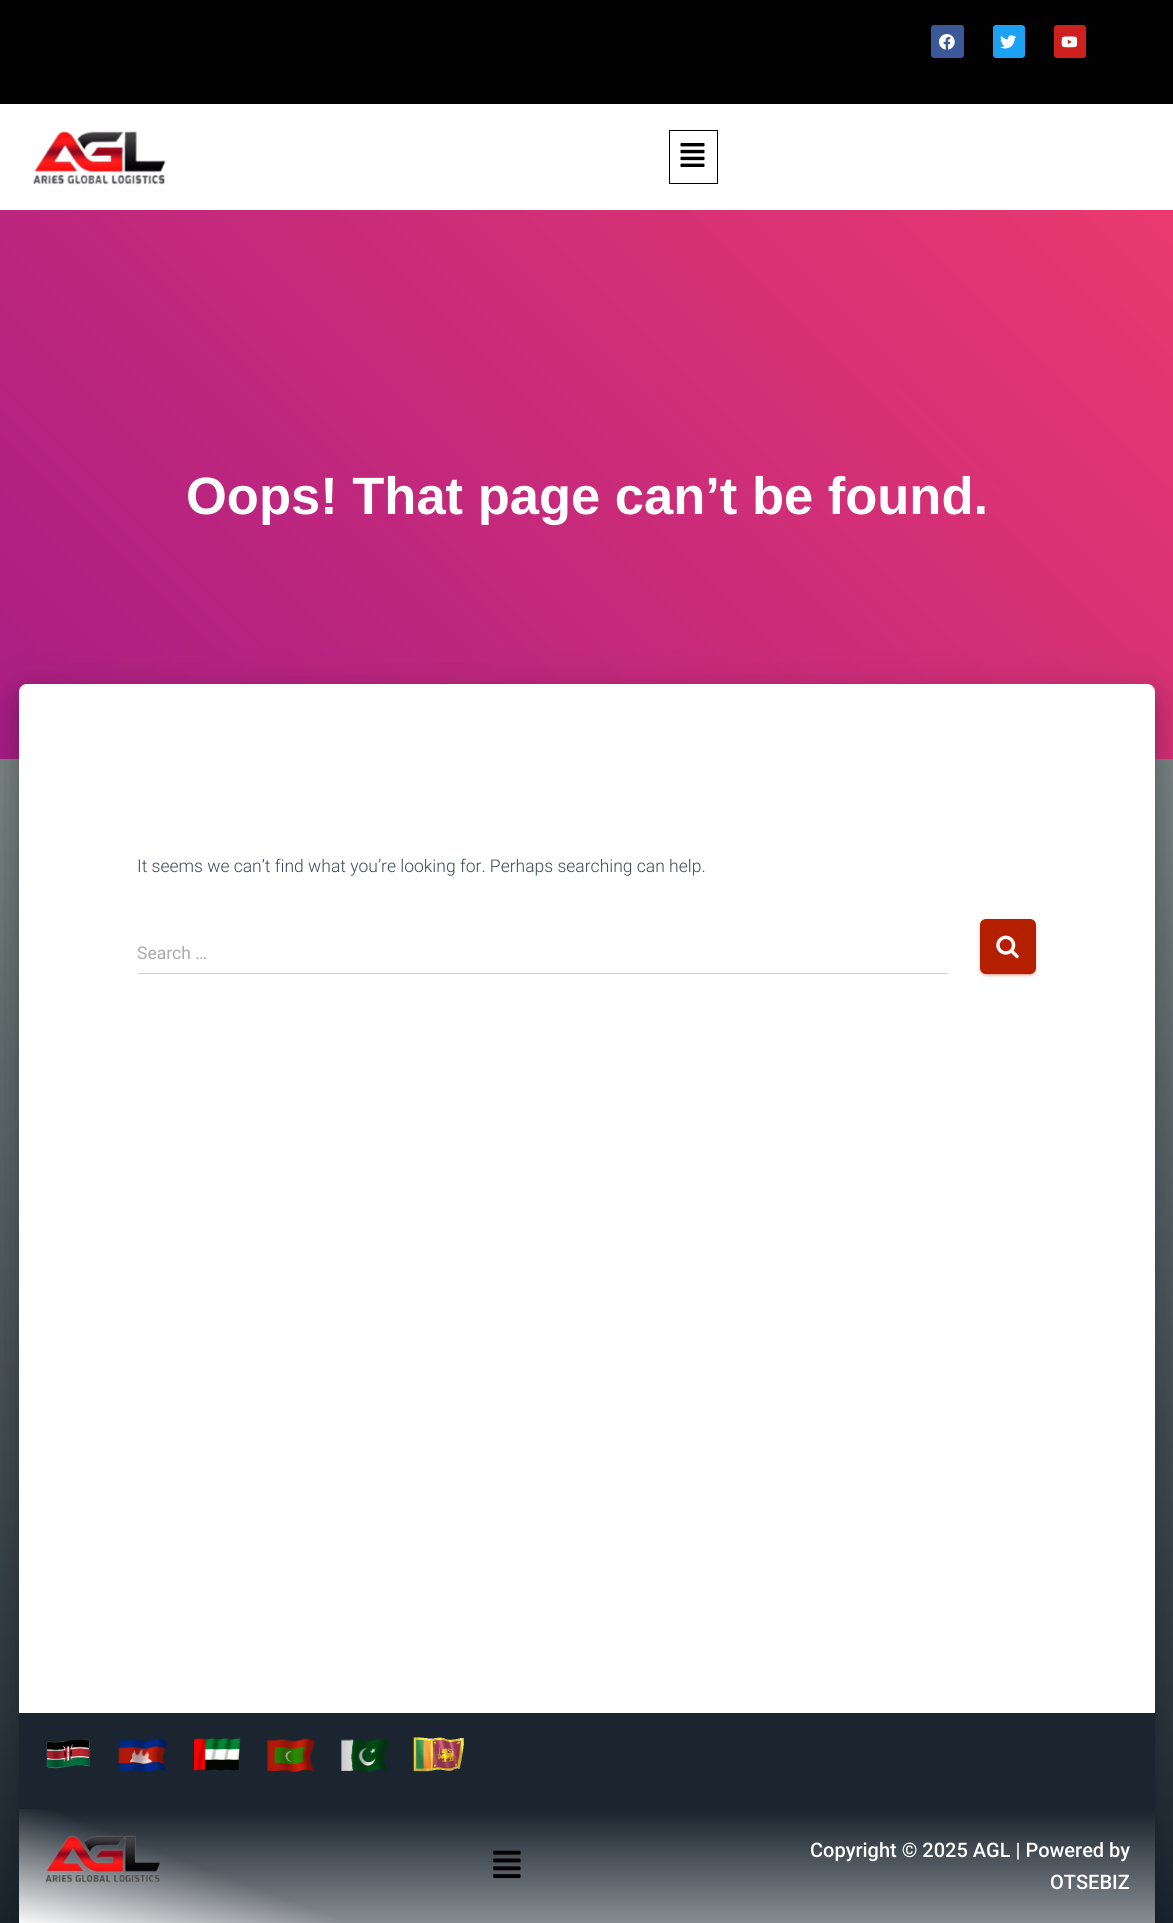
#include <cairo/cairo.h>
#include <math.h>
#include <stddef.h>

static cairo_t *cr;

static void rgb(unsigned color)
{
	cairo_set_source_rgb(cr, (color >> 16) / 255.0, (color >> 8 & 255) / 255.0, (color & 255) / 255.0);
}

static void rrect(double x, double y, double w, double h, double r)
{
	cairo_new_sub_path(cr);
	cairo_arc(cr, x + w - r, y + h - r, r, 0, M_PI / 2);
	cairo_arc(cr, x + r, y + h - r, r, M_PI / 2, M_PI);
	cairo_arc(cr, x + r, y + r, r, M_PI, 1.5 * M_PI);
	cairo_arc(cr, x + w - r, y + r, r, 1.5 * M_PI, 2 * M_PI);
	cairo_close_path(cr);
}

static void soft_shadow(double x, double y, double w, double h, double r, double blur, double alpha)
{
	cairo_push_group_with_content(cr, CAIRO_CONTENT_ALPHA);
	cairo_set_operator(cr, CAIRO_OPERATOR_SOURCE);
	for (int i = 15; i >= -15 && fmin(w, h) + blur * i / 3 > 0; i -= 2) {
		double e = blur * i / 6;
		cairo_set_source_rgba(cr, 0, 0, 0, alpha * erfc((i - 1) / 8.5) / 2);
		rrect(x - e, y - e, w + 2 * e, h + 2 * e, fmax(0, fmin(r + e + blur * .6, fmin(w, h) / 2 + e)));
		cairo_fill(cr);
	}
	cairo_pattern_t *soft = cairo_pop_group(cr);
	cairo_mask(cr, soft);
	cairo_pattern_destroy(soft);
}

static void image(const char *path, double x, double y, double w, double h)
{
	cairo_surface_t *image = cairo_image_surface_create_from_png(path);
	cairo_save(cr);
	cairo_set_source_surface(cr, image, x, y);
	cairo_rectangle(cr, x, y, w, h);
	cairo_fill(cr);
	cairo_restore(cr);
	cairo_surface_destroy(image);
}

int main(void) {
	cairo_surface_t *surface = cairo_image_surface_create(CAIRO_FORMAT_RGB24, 1173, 1923);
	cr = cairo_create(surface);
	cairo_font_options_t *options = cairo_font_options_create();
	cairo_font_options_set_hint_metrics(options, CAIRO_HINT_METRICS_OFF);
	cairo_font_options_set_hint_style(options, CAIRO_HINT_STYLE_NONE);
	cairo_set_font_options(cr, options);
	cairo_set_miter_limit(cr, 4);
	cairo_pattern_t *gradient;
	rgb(0xffffff);
	cairo_paint(cr);
	gradient = cairo_pattern_create_linear(587, 0, 587, 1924);
	cairo_pattern_add_color_stop_rgba(gradient, 0, 0.718, 0.761, 0.729, 1);
	cairo_pattern_add_color_stop_rgba(gradient, 1, 0.106, 0.145, 0.184, 1);
	cairo_set_source(cr, gradient);
	cairo_pattern_destroy(gradient);
	cairo_rectangle(cr, 0, 759, 1173, 1164);
	cairo_fill(cr);
	rgb(0x020202);
	cairo_rectangle(cr, 0, 0, 1173, 104);
	cairo_fill(cr);
	rgb(0x3b5998);
	rrect(931, 25, 33, 33, 3);
	cairo_fill(cr);
	image("img/1.png", 939, 34, 16, 16);
	rgb(0x1da1f2);
	rrect(993, 25, 32, 33, 3);
	cairo_fill(cr);
	image("img/2.png", 1000, 35, 16, 14);
	rgb(0xcd201f);
	rrect(1054, 25, 32, 33, 3);
	cairo_fill(cr);
	image("img/3.png", 1061, 36, 17, 12);
	image("img/4.png", 33, 131, 133, 54);
	cairo_rectangle(cr, 669.5, 130.5, 48, 53);
	rgb(0x000000);
	cairo_set_line_width(cr, 1);
	cairo_stroke(cr);
	image("img/5.png", 680, 143, 25, 24);
	gradient = cairo_pattern_create_linear(156, 915, 1018, 54);
	cairo_pattern_add_color_stop_rgba(gradient, 0, 0.659, 0.114, 0.518, 1);
	cairo_pattern_add_color_stop_rgba(gradient, 1, 0.918, 0.224, 0.435, 1);
	cairo_set_source(cr, gradient);
	cairo_pattern_destroy(gradient);
	cairo_rectangle(cr, 0, 210, 1173, 549);
	cairo_fill(cr);
	rgb(0x000000);
	soft_shadow(25, 700, 1124, 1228, 1, 6, 0.2);
	soft_shadow(13, 685, 1148, 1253, 14, 19, 0.12);
	soft_shadow(16, 701, 1142, 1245, 10, 15, 0.14);
	rgb(0xffffff);
	cairo_new_path(cr);
	cairo_move_to(cr, 27, 684);
	cairo_line_to(cr, 1147, 684);
	cairo_curve_to(cr, 1151.5, 684, 1155, 687.5, 1155, 692);
	cairo_line_to(cr, 1155, 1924);
	cairo_line_to(cr, 19, 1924);
	cairo_line_to(cr, 19, 692);
	cairo_curve_to(cr, 19, 687.5, 22.5, 684, 27, 684);
	cairo_close_path(cr);
	cairo_fill(cr);
	rgb(0xd2d2d2);
	cairo_rectangle(cr, 138, 973, 810, 1);
	cairo_fill(cr);
	rgb(0xb41f00);
	soft_shadow(980, 920, 56, 55, 6, 3, 0.12);
	soft_shadow(983, 925, 51, 50, 4, 0.5, 0.2);
	soft_shadow(980, 921, 56, 55, 6, 1, 0.14);
	rgb(0xb41f00);
	rrect(980, 919, 56, 55, 6);
	cairo_fill(cr);
	image("img/6.png", 996, 935, 23, 24);
	rgb(0x1b252f);
	cairo_rectangle(cr, 19, 1713, 1136, 96);
	cairo_fill(cr);
	image("img/7.png", 46, 1739, 44, 30);
	image("img/8.png", 118, 1738, 50, 34);
	image("img/9.png", 193, 1738, 48, 33);
	image("img/10.png", 267, 1738, 48, 34);
	image("img/11.png", 341, 1738, 48, 34);
	image("img/12.png", 413, 1737, 51, 35);
	gradient = cairo_pattern_create_linear(679, 1626, 495, 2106);
	cairo_pattern_add_color_stop_rgba(gradient, 0.77, 0.106, 0.145, 0.184, 1);
	cairo_pattern_add_color_stop_rgba(gradient, 1, 1, 1, 1, 1);
	cairo_set_source(cr, gradient);
	cairo_pattern_destroy(gradient);
	cairo_rectangle(cr, 19, 1809, 1136, 114);
	cairo_fill(cr);
	gradient = cairo_pattern_create_linear(587, 1809, 587, 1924);
	cairo_pattern_add_color_stop_rgba(gradient, 0, 0.106, 0.145, 0.184, 0.5);
	cairo_pattern_add_color_stop_rgba(gradient, 1, 0.969, 0.969, 0.969, 0.5);
	cairo_set_source(cr, gradient);
	cairo_pattern_destroy(gradient);
	cairo_rectangle(cr, 19, 1809, 1136, 114);
	cairo_fill(cr);
	image("img/13.png", 45, 1835, 116, 48);
	image("img/14.png", 493, 1850, 28, 29);
	cairo_select_font_face(cr, "Liberation Sans", CAIRO_FONT_SLANT_NORMAL, CAIRO_FONT_WEIGHT_BOLD);
	cairo_set_font_size(cr, 52.5);
	rgb(0xffffff);
	cairo_move_to(cr, 186, 514);
	cairo_show_text(cr, "Oops! That page can’t be found.");
	cairo_select_font_face(cr, "Roboto Light", CAIRO_FONT_SLANT_NORMAL, CAIRO_FONT_WEIGHT_NORMAL);
	cairo_set_font_size(cr, 17.5);
	rgb(0x3c4858);
	cairo_move_to(cr, 137, 872);
	cairo_show_text(cr, "It seems we can’t find what you’re looking for. Perhaps searching can help.");
	cairo_select_font_face(cr, "Roboto", CAIRO_FONT_SLANT_NORMAL, CAIRO_FONT_WEIGHT_NORMAL);
	rgb(0xaaaaaa);
	cairo_move_to(cr, 137, 959);
	cairo_show_text(cr, "Search …");
	cairo_select_font_face(cr, "Roboto Medium", CAIRO_FONT_SLANT_NORMAL, CAIRO_FONT_WEIGHT_NORMAL);
	cairo_set_font_size(cr, 20);
	rgb(0xffffff);
	cairo_move_to(cr, 810, 1857);
	cairo_show_text(cr, "Copyright © 2025 AGL | Powered by");
	cairo_move_to(cr, 1050, 1889);
	cairo_show_text(cr, "OTSEBIZ");
	cairo_surface_write_to_png(surface, "page.png");
	cairo_font_options_destroy(options);
	cairo_destroy(cr);
	cairo_surface_destroy(surface);
	return 0;
}
